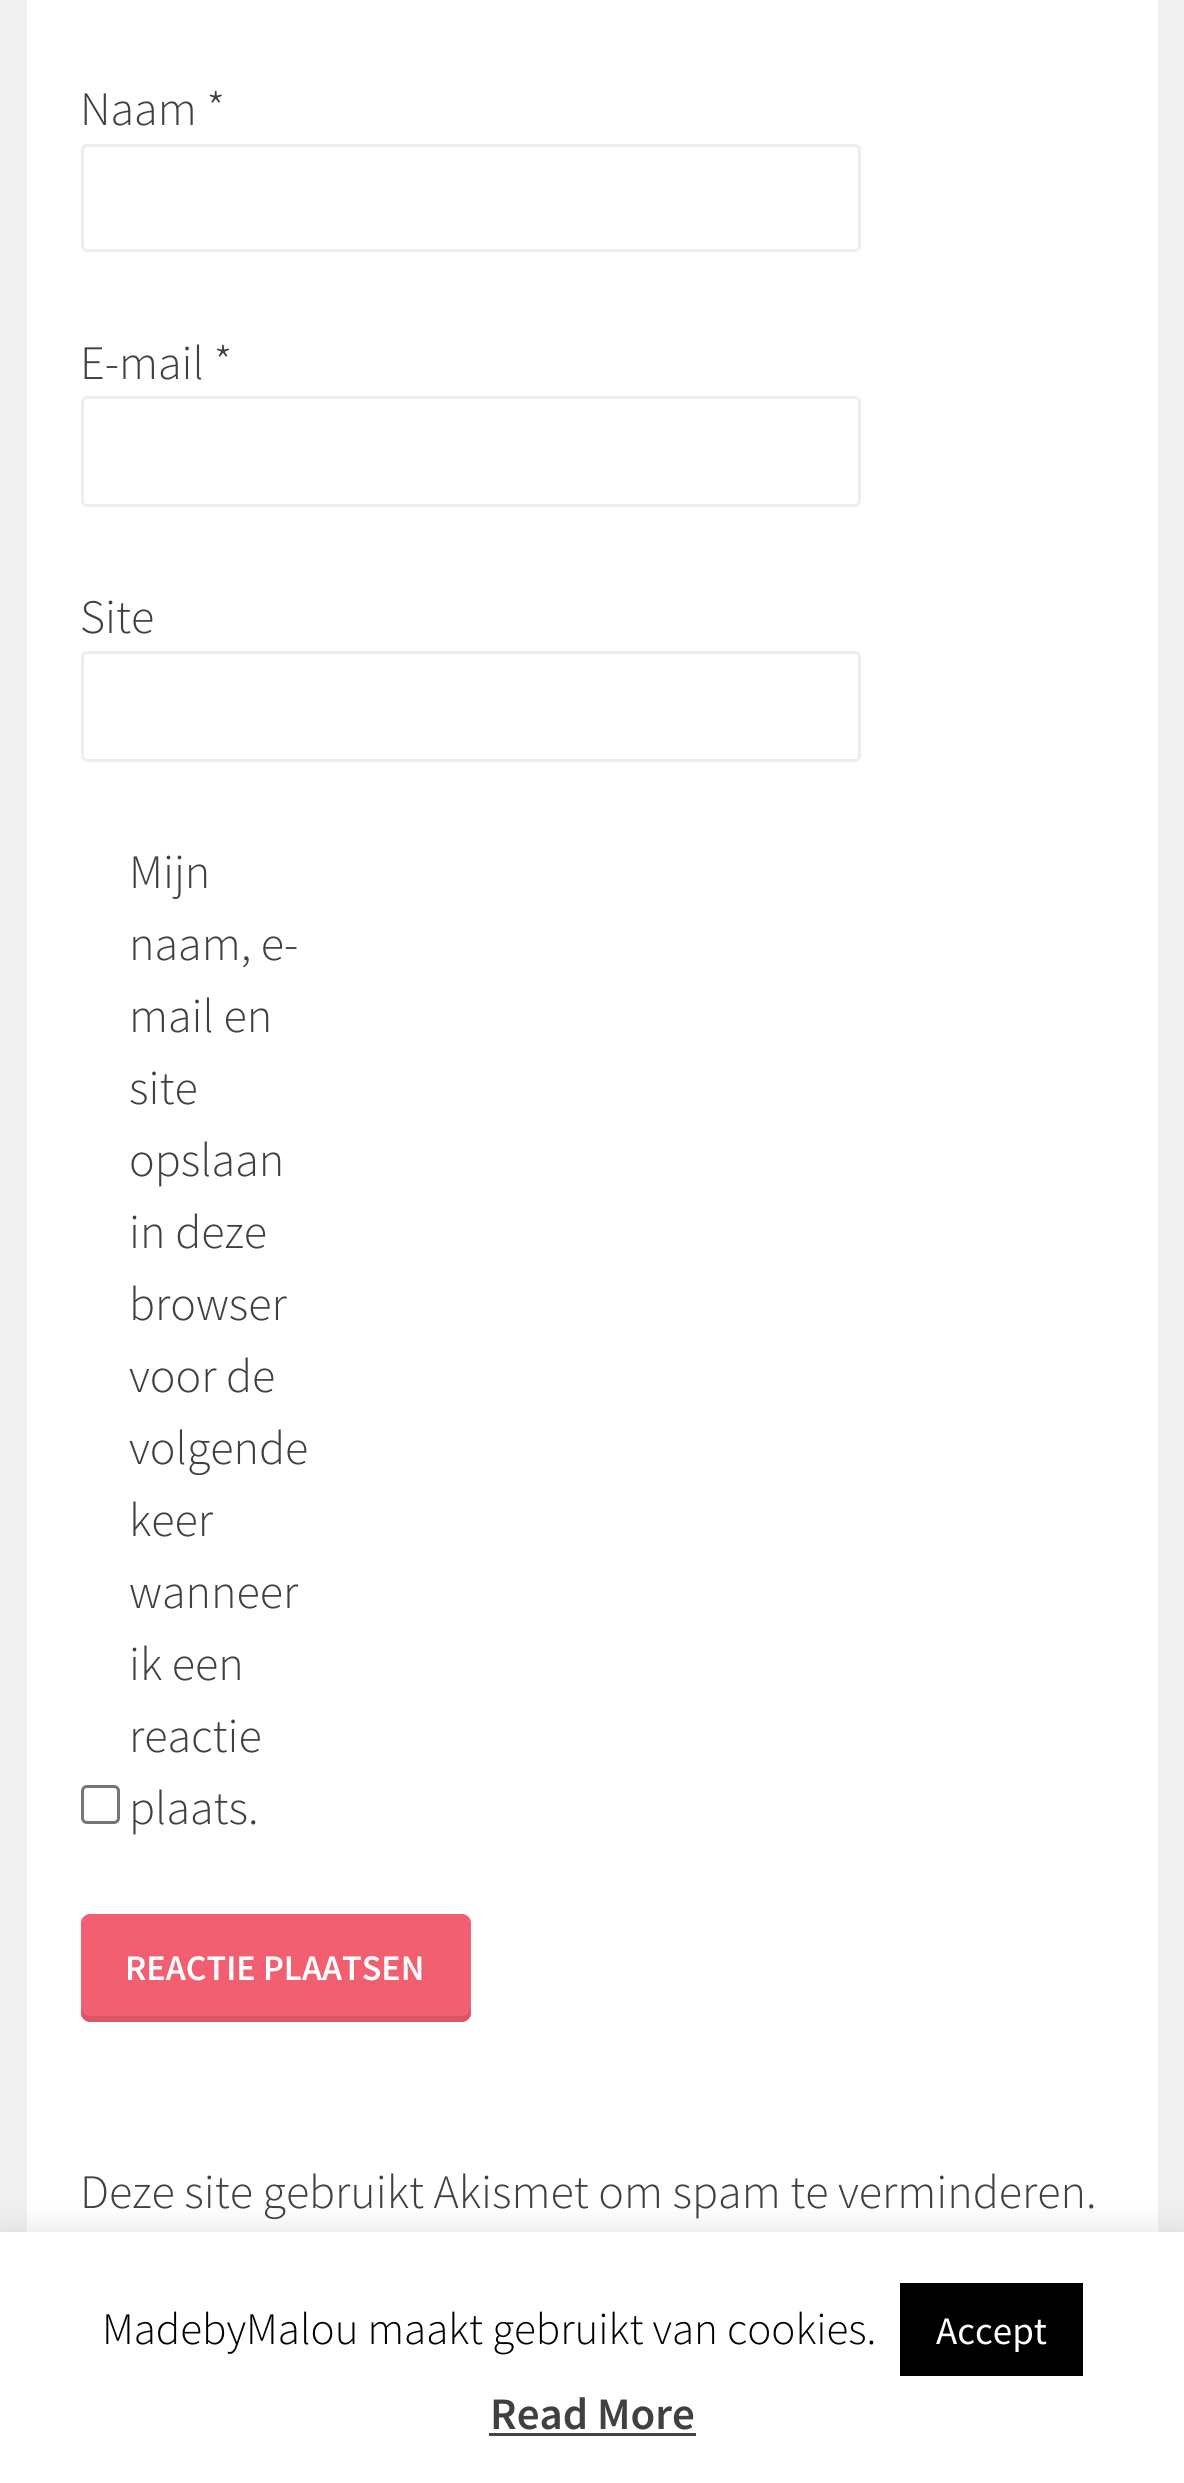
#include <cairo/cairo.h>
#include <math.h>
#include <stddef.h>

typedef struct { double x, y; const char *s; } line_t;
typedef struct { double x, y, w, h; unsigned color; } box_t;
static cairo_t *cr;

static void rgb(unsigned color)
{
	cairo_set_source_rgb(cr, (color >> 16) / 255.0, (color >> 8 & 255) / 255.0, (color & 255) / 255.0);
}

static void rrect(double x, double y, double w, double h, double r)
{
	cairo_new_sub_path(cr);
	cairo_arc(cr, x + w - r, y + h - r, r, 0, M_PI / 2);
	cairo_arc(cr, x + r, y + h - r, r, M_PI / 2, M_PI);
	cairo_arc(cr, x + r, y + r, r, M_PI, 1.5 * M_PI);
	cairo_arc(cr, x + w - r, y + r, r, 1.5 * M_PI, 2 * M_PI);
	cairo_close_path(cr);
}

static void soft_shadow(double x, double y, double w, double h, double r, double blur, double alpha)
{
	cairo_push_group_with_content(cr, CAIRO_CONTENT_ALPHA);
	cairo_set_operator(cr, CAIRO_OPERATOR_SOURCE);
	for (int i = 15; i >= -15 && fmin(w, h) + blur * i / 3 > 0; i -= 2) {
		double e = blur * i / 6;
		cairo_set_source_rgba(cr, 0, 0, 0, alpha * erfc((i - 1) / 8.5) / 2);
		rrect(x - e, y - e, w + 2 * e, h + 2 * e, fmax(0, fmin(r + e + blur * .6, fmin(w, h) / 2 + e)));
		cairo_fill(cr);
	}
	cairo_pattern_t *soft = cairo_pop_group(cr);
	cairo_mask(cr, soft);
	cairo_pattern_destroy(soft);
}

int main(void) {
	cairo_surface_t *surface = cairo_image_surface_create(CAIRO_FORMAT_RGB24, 1184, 2483);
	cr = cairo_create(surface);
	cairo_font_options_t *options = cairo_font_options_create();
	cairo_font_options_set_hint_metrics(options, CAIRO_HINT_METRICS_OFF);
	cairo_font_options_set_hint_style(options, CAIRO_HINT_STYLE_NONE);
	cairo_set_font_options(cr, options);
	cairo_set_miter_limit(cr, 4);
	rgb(0xf0f0f0);
	cairo_paint(cr);
	rgb(0xffffff);
	cairo_rectangle(cr, 27, 0, 1131, 2232);
	cairo_fill(cr);
	rrect(82.5, 145.5, 777, 105, 4.5);
	rgb(0xeeeeee);
	cairo_set_line_width(cr, 3);
	cairo_stroke(cr);
	rrect(82.5, 397.5, 777, 108, 4.5);
	cairo_stroke(cr);
	rrect(82.5, 652.5, 777, 108, 4.5);
	cairo_stroke(cr);
	rrect(82.5, 1786.5, 36, 36, 4.5);
	rgb(0x767676);
	cairo_stroke(cr);
	rgb(0xf25f70);
	rrect(81, 1914, 390, 108, 9);
	cairo_fill(cr);
	cairo_set_source_rgba(cr, 0, 0, 0, 0.1);
	cairo_new_path(cr);
	cairo_move_to(cr, 81, 2007);
	cairo_line_to(cr, 81, 2013);
	cairo_curve_to(cr, 81, 2018, 85, 2022, 90, 2022);
	cairo_line_to(cr, 462, 2022);
	cairo_curve_to(cr, 467, 2022, 471, 2018, 471, 2013);
	cairo_line_to(cr, 471, 2007);
	cairo_curve_to(cr, 471, 2012, 467, 2016, 462, 2016);
	cairo_line_to(cr, 90, 2016);
	cairo_curve_to(cr, 85, 2016, 81, 2012, 81, 2007);
	cairo_close_path(cr);
	cairo_fill(cr);
	rgb(0xacabab);
	soft_shadow(0, 2229, 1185, 252, 0, 15, 0.3);
	{
		static const box_t items[] = {
			{0, 2232, 1184, 251, 0xffffff},
			{900, 2283, 183, 93, 0x000000},
			{489, 2433, 207, 3, 0x444444},
		};
		for (size_t i = 0; i < sizeof items / sizeof *items; i++) {
			rgb(items[i].color);
			cairo_rectangle(cr, items[i].x, items[i].y, items[i].w, items[i].h);
			cairo_fill(cr);
		}
	}
	cairo_select_font_face(cr, "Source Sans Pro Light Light", CAIRO_FONT_SLANT_NORMAL, CAIRO_FONT_WEIGHT_NORMAL);
	cairo_set_font_size(cr, 48);
	rgb(0x404040);
	{
		static const line_t items[] = {
			{80, 125, "Naam *"},
			{80, 379, "E-mail *"},
			{80, 633, "Site"},
			{129, 888, "Mijn"},
			{129, 960, "naam, e-"},
			{129, 1032, "mail en"},
			{129, 1104, "site"},
			{129, 1176, "opslaan"},
			{129, 1248, "in deze"},
			{129, 1320, "browser"},
			{129, 1392, "voor de"},
			{129, 1464, "volgende"},
			{129, 1536, "keer"},
			{129, 1608, "wanneer"},
			{129, 1680, "ik een"},
			{129, 1752, "reactie"},
			{129, 1824, "plaats."},
		};
		for (size_t i = 0; i < sizeof items / sizeof *items; i++) {
			cairo_move_to(cr, items[i].x, items[i].y);
			cairo_show_text(cr, items[i].s);
		}
	}
	cairo_select_font_face(cr, "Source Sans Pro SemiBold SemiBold", CAIRO_FONT_SLANT_NORMAL, CAIRO_FONT_WEIGHT_NORMAL);
	cairo_set_font_size(cr, 36);
	rgb(0xffffff);
	cairo_move_to(cr, 125, 1980);
	cairo_show_text(cr, "REACTIE PLAATSEN");
	cairo_select_font_face(cr, "Source Sans Pro Light Light", CAIRO_FONT_SLANT_NORMAL, CAIRO_FONT_WEIGHT_NORMAL);
	cairo_set_font_size(cr, 48);
	rgb(0x404040);
	cairo_move_to(cr, 80, 2208);
	cairo_show_text(cr, "Deze site gebruikt Akismet om spam te verminderen.");
	cairo_set_font_size(cr, 45);
	rgb(0x000000);
	cairo_move_to(cr, 102, 2344);
	cairo_show_text(cr, "MadebyMalou maakt gebruikt van cookies.");
	cairo_select_font_face(cr, "Source Sans Pro", CAIRO_FONT_SLANT_NORMAL, CAIRO_FONT_WEIGHT_NORMAL);
	cairo_set_font_size(cr, 39);
	rgb(0xffffff);
	cairo_move_to(cr, 936, 2344);
	cairo_show_text(cr, "Accept");
	cairo_select_font_face(cr, "Source Sans Pro SemiBold SemiBold", CAIRO_FONT_SLANT_NORMAL, CAIRO_FONT_WEIGHT_NORMAL);
	cairo_set_font_size(cr, 45);
	rgb(0x404040);
	cairo_move_to(cr, 490, 2429);
	cairo_show_text(cr, "Read More");
	cairo_surface_write_to_png(surface, "page.png");
	cairo_font_options_destroy(options);
	cairo_destroy(cr);
	cairo_surface_destroy(surface);
	return 0;
}
